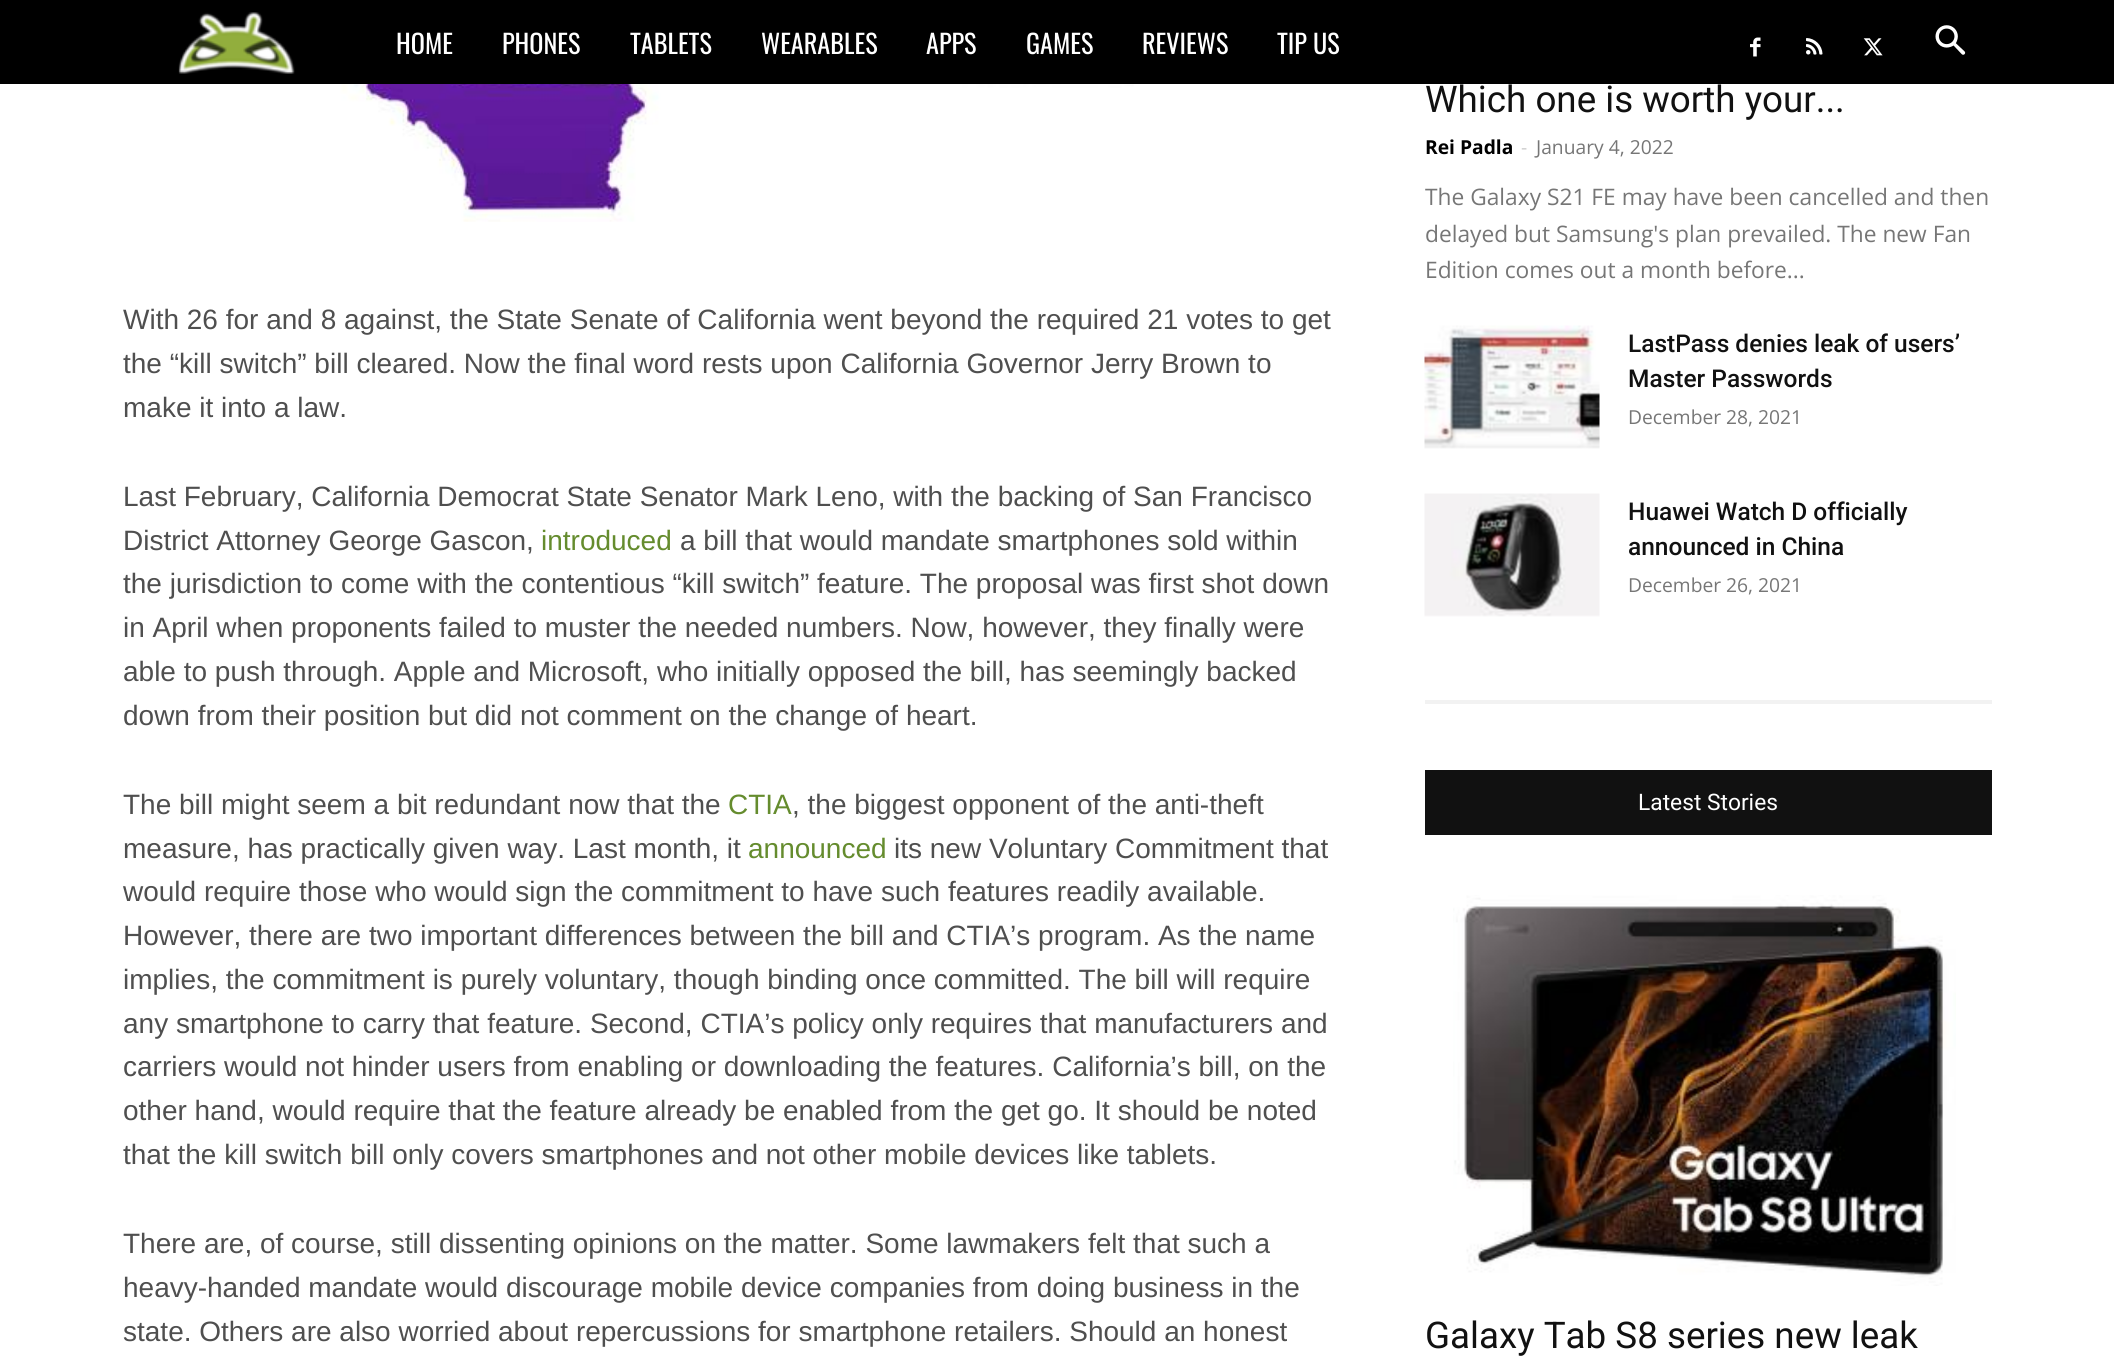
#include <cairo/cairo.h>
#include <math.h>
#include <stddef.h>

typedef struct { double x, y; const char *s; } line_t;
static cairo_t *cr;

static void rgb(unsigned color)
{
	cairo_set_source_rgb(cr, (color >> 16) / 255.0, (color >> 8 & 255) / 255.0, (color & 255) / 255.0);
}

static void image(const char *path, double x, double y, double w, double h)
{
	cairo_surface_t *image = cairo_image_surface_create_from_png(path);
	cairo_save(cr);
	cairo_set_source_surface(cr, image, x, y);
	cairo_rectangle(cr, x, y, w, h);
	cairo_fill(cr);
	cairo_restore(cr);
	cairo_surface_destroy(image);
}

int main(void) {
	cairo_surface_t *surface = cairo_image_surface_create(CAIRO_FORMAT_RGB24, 2114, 1363);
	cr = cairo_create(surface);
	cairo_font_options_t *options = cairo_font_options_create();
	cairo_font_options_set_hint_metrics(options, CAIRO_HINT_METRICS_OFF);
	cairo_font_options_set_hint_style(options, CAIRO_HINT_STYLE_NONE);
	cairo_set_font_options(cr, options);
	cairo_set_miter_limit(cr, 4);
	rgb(0xffffff);
	cairo_paint(cr);
	rgb(0x000000);
	cairo_rectangle(cr, 0, 0, 2114, 84);
	cairo_fill(cr);
	image("img/1.png", 178, 12, 117, 62);
	image("img/2.png", 1750, 37, 11, 20);
	image("img/3.png", 1806, 38, 17, 17);
	image("img/4.png", 1863, 38, 20, 18);
	image("img/5.png", 1935, 25, 31, 30);
	image("img/6.png", 268, 84, 1073, 138);
	image("img/7.png", 1424, 325, 176, 124);
	image("img/8.png", 1424, 493, 176, 124);
	rgb(0xf2f2f2);
	cairo_rectangle(cr, 1425, 700, 567, 4);
	cairo_fill(cr);
	rgb(0x111111);
	cairo_rectangle(cr, 1425, 770, 567, 65);
	cairo_fill(cr);
	image("img/9.png", 1453, 895, 503, 391);
	cairo_select_font_face(cr, "Oswald", CAIRO_FONT_SLANT_NORMAL, CAIRO_FONT_WEIGHT_NORMAL);
	cairo_set_font_size(cr, 26.25);
	rgb(0xffffff);
	{
		static const line_t items[] = {
			{396, 54, "HOME"},
			{502, 54, "PHONES"},
			{630, 54, "TABLETS"},
			{761, 54, "WEARABLES"},
			{926, 54, "APPS"},
			{1026, 54, "GAMES"},
			{1142, 54, "REVIEWS"},
			{1277, 54, "TIP US"},
		};
		for (size_t i = 0; i < sizeof items / sizeof *items; i++) {
			cairo_move_to(cr, items[i].x, items[i].y);
			cairo_show_text(cr, items[i].s);
		}
	}
	cairo_select_font_face(cr, "Liberation Sans", CAIRO_FONT_SLANT_NORMAL, CAIRO_FONT_WEIGHT_NORMAL);
	cairo_set_font_size(cr, 28);
	rgb(0x4f4f4f);
	{
		static const line_t items[] = {
			{123, 329, "With 26 for and 8 against, the State Senate of California went beyond the required 21 votes to get"},
			{123, 373, "the “kill switch” bill cleared. Now the final word rests upon California Governor Jerry Brown to"},
			{123, 417, "make it into a law."},
			{123, 506, "Last February, California Democrat State Senator Mark Leno, with the backing of San Francisco"},
			{123, 550, "District Attorney George Gascon,"},
		};
		for (size_t i = 0; i < sizeof items / sizeof *items; i++) {
			cairo_move_to(cr, items[i].x, items[i].y);
			cairo_show_text(cr, items[i].s);
		}
	}
	rgb(0x658c2e);
	cairo_move_to(cr, 541, 550);
	cairo_show_text(cr, "introduced");
	rgb(0x4f4f4f);
	{
		static const line_t items[] = {
			{680, 550, "a bill that would mandate smartphones sold within"},
			{123, 593, "the jurisdiction to come with the contentious “kill switch” feature. The proposal was first shot down"},
			{123, 637, "in April when proponents failed to muster the needed numbers. Now, however, they finally were"},
			{123, 681, "able to push through. Apple and Microsoft, who initially opposed the bill, has seemingly backed"},
			{123, 725, "down from their position but did not comment on the change of heart."},
			{123, 814, "The bill might seem a bit redundant now that the"},
		};
		for (size_t i = 0; i < sizeof items / sizeof *items; i++) {
			cairo_move_to(cr, items[i].x, items[i].y);
			cairo_show_text(cr, items[i].s);
		}
	}
	rgb(0x658c2e);
	cairo_move_to(cr, 728, 814);
	cairo_show_text(cr, "CTIA");
	rgb(0x4f4f4f);
	cairo_move_to(cr, 792, 814);
	cairo_show_text(cr, ", the biggest opponent of the anti-theft");
	cairo_move_to(cr, 123, 858);
	cairo_show_text(cr, "measure, has practically given way. Last month, it");
	rgb(0x658c2e);
	cairo_move_to(cr, 748, 858);
	cairo_show_text(cr, "announced");
	rgb(0x4f4f4f);
	{
		static const line_t items[] = {
			{894, 858, "its new Voluntary Commitment that"},
			{123, 901, "would require those who would sign the commitment to have such features readily available."},
			{123, 945, "However, there are two important differences between the bill and CTIA’s program. As the name"},
			{123, 989, "implies, the commitment is purely voluntary, though binding once committed. The bill will require"},
			{123, 1033, "any smartphone to carry that feature. Second, CTIA’s policy only requires that manufacturers and"},
			{123, 1076, "carriers would not hinder users from enabling or downloading the features. California’s bill, on the"},
			{123, 1120, "other hand, would require that the feature already be enabled from the get go. It should be noted"},
			{123, 1164, "that the kill switch bill only covers smartphones and not other mobile devices like tablets."},
			{123, 1253, "There are, of course, still dissenting opinions on the matter. Some lawmakers felt that such a"},
			{123, 1297, "heavy-handed mandate would discourage mobile device companies from doing business in the"},
			{123, 1341, "state. Others are also worried about repercussions for smartphone retailers. Should an honest"},
		};
		for (size_t i = 0; i < sizeof items / sizeof *items; i++) {
			cairo_move_to(cr, items[i].x, items[i].y);
			cairo_show_text(cr, items[i].s);
		}
	}
	cairo_select_font_face(cr, "Roboto", CAIRO_FONT_SLANT_NORMAL, CAIRO_FONT_WEIGHT_NORMAL);
	cairo_set_font_size(cr, 36.75);
	rgb(0x111111);
	cairo_move_to(cr, 1425, 112);
	cairo_show_text(cr, "Which one is worth your...");
	cairo_select_font_face(cr, "Open Sans", CAIRO_FONT_SLANT_NORMAL, CAIRO_FONT_WEIGHT_BOLD);
	cairo_set_font_size(cr, 19.25);
	rgb(0x000000);
	cairo_move_to(cr, 1425, 154);
	cairo_show_text(cr, "Rei Padla");
	cairo_select_font_face(cr, "Open Sans", CAIRO_FONT_SLANT_NORMAL, CAIRO_FONT_WEIGHT_NORMAL);
	rgb(0xcccccc);
	cairo_move_to(cr, 1521, 154);
	cairo_show_text(cr, "-");
	rgb(0x767676);
	cairo_move_to(cr, 1536, 154);
	cairo_show_text(cr, "January 4, 2022");
	cairo_set_font_size(cr, 22.75);
	{
		static const line_t items[] = {
			{1425, 205, "The Galaxy S21 FE may have been cancelled and then"},
			{1425, 242, "delayed but Samsung's plan prevailed. The new Fan"},
			{1425, 278, "Edition comes out a month before..."},
		};
		for (size_t i = 0; i < sizeof items / sizeof *items; i++) {
			cairo_move_to(cr, items[i].x, items[i].y);
			cairo_show_text(cr, items[i].s);
		}
	}
	cairo_select_font_face(cr, "Roboto Medium", CAIRO_FONT_SLANT_NORMAL, CAIRO_FONT_WEIGHT_NORMAL);
	cairo_set_font_size(cr, 24.5);
	rgb(0x111111);
	cairo_move_to(cr, 1628, 352);
	cairo_show_text(cr, "LastPass denies leak of users’");
	cairo_move_to(cr, 1628, 387);
	cairo_show_text(cr, "Master Passwords");
	cairo_select_font_face(cr, "Open Sans", CAIRO_FONT_SLANT_NORMAL, CAIRO_FONT_WEIGHT_NORMAL);
	cairo_set_font_size(cr, 19.25);
	rgb(0x767676);
	cairo_move_to(cr, 1628, 424);
	cairo_show_text(cr, "December 28, 2021");
	cairo_select_font_face(cr, "Roboto Medium", CAIRO_FONT_SLANT_NORMAL, CAIRO_FONT_WEIGHT_NORMAL);
	cairo_set_font_size(cr, 24.5);
	rgb(0x111111);
	cairo_move_to(cr, 1628, 520);
	cairo_show_text(cr, "Huawei Watch D officially");
	cairo_move_to(cr, 1628, 555);
	cairo_show_text(cr, "announced in China");
	cairo_select_font_face(cr, "Open Sans", CAIRO_FONT_SLANT_NORMAL, CAIRO_FONT_WEIGHT_NORMAL);
	cairo_set_font_size(cr, 19.25);
	rgb(0x767676);
	cairo_move_to(cr, 1628, 592);
	cairo_show_text(cr, "December 26, 2021");
	cairo_select_font_face(cr, "Roboto", CAIRO_FONT_SLANT_NORMAL, CAIRO_FONT_WEIGHT_NORMAL);
	cairo_set_font_size(cr, 22.75);
	rgb(0xffffff);
	cairo_move_to(cr, 1638, 810);
	cairo_show_text(cr, "Latest Stories");
	cairo_set_font_size(cr, 36.75);
	rgb(0x111111);
	cairo_move_to(cr, 1425, 1348);
	cairo_show_text(cr, "Galaxy Tab S8 series new leak");
	cairo_surface_write_to_png(surface, "page.png");
	cairo_font_options_destroy(options);
	cairo_destroy(cr);
	cairo_surface_destroy(surface);
	return 0;
}
